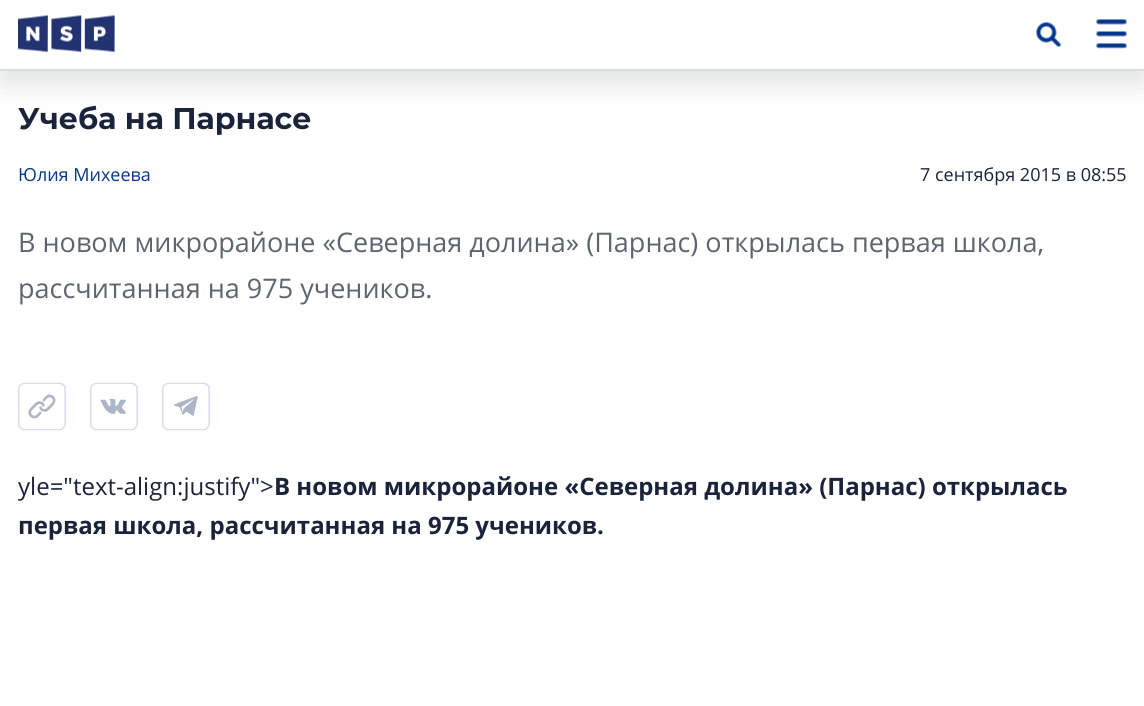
#include <cairo/cairo.h>
#include <math.h>
#include <stddef.h>

static cairo_t *cr;

static void rgb(unsigned color)
{
	cairo_set_source_rgb(cr, (color >> 16) / 255.0, (color >> 8 & 255) / 255.0, (color & 255) / 255.0);
}

static void rrect(double x, double y, double w, double h, double r)
{
	cairo_new_sub_path(cr);
	cairo_arc(cr, x + w - r, y + h - r, r, 0, M_PI / 2);
	cairo_arc(cr, x + r, y + h - r, r, M_PI / 2, M_PI);
	cairo_arc(cr, x + r, y + r, r, M_PI, 1.5 * M_PI);
	cairo_arc(cr, x + w - r, y + r, r, 1.5 * M_PI, 2 * M_PI);
	cairo_close_path(cr);
}

static void soft_shadow(double x, double y, double w, double h, double r, double blur, double alpha)
{
	cairo_push_group_with_content(cr, CAIRO_CONTENT_ALPHA);
	cairo_set_operator(cr, CAIRO_OPERATOR_SOURCE);
	for (int i = 15; i >= -15 && fmin(w, h) + blur * i / 3 > 0; i -= 2) {
		double e = blur * i / 6;
		cairo_set_source_rgba(cr, 0, 0, 0, alpha * erfc((i - 1) / 8.5) / 2);
		rrect(x - e, y - e, w + 2 * e, h + 2 * e, fmax(0, fmin(r + e + blur * .6, fmin(w, h) / 2 + e)));
		cairo_fill(cr);
	}
	cairo_pattern_t *soft = cairo_pop_group(cr);
	cairo_mask(cr, soft);
	cairo_pattern_destroy(soft);
}

static void image(const char *path, double x, double y, double w, double h)
{
	cairo_surface_t *image = cairo_image_surface_create_from_png(path);
	cairo_save(cr);
	cairo_set_source_surface(cr, image, x, y);
	cairo_rectangle(cr, x, y, w, h);
	cairo_fill(cr);
	cairo_restore(cr);
	cairo_surface_destroy(image);
}

int main(void) {
	cairo_surface_t *surface = cairo_image_surface_create(CAIRO_FORMAT_RGB24, 1144, 706);
	cr = cairo_create(surface);
	cairo_font_options_t *options = cairo_font_options_create();
	cairo_font_options_set_hint_metrics(options, CAIRO_HINT_METRICS_OFF);
	cairo_font_options_set_hint_style(options, CAIRO_HINT_STYLE_NONE);
	cairo_set_font_options(cr, options);
	cairo_set_miter_limit(cr, 4);
	rgb(0xffffff);
	cairo_paint(cr);
	rgb(0x000000);
	soft_shadow(0, 12, 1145, 71, 0, 15, 0.12);
	rgb(0xffffff);
	cairo_rectangle(cr, 0, 0, 1144, 69);
	cairo_fill(cr);
	rgb(0xd7ddea);
	cairo_rectangle(cr, 0, 69, 1144, 2);
	cairo_fill(cr);
	image("img/1.png", 18, 15, 97, 38);
	image("img/2.png", 1036, 22, 25, 25);
	image("img/3.png", 1096, 19, 31, 30);
	image("img/4.png", 18, 382, 48, 49);
	image("img/5.png", 90, 382, 48, 49);
	image("img/6.png", 162, 382, 48, 49);
	cairo_select_font_face(cr, "Montserrat", CAIRO_FONT_SLANT_NORMAL, CAIRO_FONT_WEIGHT_BOLD);
	cairo_set_font_size(cr, 30);
	rgb(0x1a233a);
	cairo_move_to(cr, 18, 129);
	cairo_show_text(cr, "Учеба на Парнасе");
	cairo_select_font_face(cr, "Open Sans", CAIRO_FONT_SLANT_NORMAL, CAIRO_FONT_WEIGHT_NORMAL);
	cairo_set_font_size(cr, 18);
	rgb(0x04378b);
	cairo_move_to(cr, 18, 181);
	cairo_show_text(cr, "Юлия Михеева");
	rgb(0x1a233a);
	cairo_move_to(cr, 920, 181);
	cairo_show_text(cr, "7 сентября 2015 в 08:55");
	cairo_set_font_size(cr, 27);
	rgb(0x5e6470);
	cairo_move_to(cr, 18, 252);
	cairo_show_text(cr, "В новом микрорайоне «Северная долина» (Парнас) открылась первая школа,");
	cairo_move_to(cr, 18, 298);
	cairo_show_text(cr, "рассчитанная на 975 учеников.");
	cairo_set_font_size(cr, 24);
	rgb(0x1a233a);
	cairo_move_to(cr, 18, 495);
	cairo_show_text(cr, "yle=\"text-align:justify\">");
	cairo_select_font_face(cr, "Open Sans", CAIRO_FONT_SLANT_NORMAL, CAIRO_FONT_WEIGHT_BOLD);
	cairo_move_to(cr, 274, 495);
	cairo_show_text(cr, "В новом микрорайоне «Северная долина» (Парнас) открылась");
	cairo_move_to(cr, 18, 534);
	cairo_show_text(cr, "первая школа, рассчитанная на 975 учеников.");
	cairo_surface_write_to_png(surface, "page.png");
	cairo_font_options_destroy(options);
	cairo_destroy(cr);
	cairo_surface_destroy(surface);
	return 0;
}
